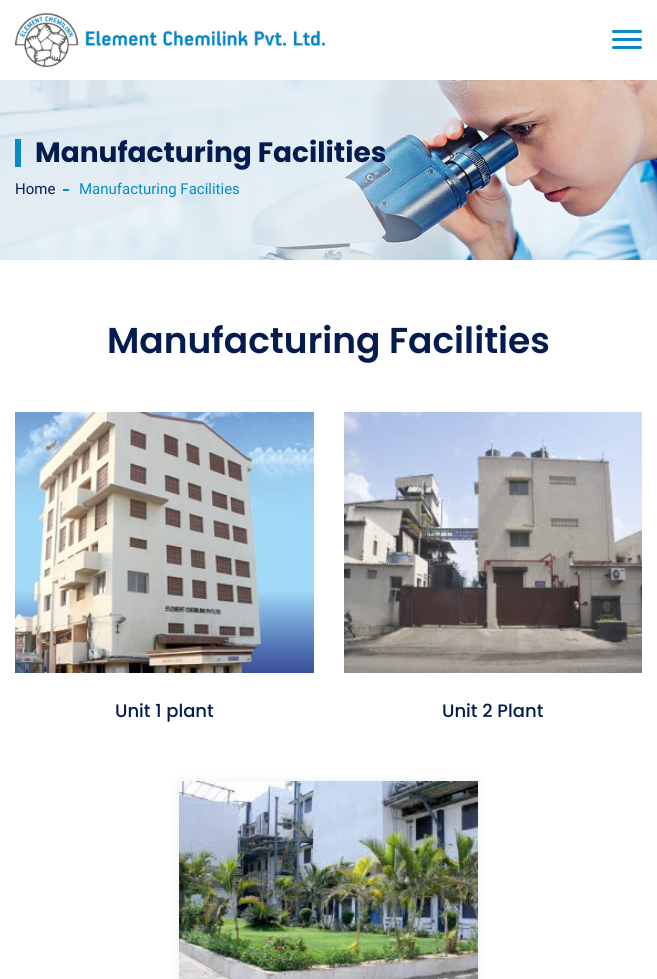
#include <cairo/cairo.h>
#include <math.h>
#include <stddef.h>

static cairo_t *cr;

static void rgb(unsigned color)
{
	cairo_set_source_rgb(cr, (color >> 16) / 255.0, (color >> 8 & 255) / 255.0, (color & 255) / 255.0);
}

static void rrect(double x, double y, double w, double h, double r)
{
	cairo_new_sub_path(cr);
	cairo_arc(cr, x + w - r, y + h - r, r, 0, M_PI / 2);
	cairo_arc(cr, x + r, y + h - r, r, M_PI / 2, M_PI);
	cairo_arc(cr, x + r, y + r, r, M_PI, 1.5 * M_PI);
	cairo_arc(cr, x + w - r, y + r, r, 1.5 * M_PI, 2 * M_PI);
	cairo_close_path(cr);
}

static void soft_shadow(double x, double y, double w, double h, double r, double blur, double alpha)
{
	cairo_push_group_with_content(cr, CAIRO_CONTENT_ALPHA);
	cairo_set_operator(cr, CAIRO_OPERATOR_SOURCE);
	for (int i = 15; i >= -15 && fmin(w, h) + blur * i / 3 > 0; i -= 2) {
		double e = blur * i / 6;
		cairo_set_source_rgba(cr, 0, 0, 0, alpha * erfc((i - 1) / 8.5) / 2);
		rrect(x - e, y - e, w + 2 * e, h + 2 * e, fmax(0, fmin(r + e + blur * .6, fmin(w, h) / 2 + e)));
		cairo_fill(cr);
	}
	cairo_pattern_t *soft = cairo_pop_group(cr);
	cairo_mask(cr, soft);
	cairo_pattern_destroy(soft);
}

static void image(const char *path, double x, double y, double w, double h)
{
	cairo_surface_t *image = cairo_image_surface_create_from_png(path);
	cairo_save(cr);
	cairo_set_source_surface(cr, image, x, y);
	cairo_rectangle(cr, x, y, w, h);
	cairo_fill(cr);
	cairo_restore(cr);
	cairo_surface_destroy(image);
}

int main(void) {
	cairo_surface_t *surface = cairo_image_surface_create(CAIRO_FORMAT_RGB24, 657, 979);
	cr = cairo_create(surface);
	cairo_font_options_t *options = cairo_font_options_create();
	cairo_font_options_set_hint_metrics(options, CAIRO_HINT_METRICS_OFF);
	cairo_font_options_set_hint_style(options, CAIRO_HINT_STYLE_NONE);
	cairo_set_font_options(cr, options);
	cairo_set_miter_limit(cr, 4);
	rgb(0xffffff);
	cairo_paint(cr);
	image("img/1.png", 15, 13, 310, 55);
	rgb(0x088ac7);
	rrect(612, 38, 30, 3, 1.5);
	cairo_fill(cr);
	rrect(612, 30, 30, 3, 1.5);
	cairo_fill(cr);
	rrect(612, 46, 30, 3, 1.5);
	cairo_fill(cr);
	image("img/2.png", 0, 80, 657, 180);
	cairo_rectangle(cr, 15, 139, 6, 28);
	cairo_fill(cr);
	cairo_rectangle(cr, 63, 189, 6, 2);
	cairo_fill(cr);
	image("img/3.png", 15, 412, 299, 261);
	image("img/4.png", 344, 412, 298, 261);
	rgb(0x002b5c);
	soft_shadow(179, 781, 299, 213, 0, 5, 0.08);
	image("img/5.png", 179, 781, 299, 198);
	cairo_select_font_face(cr, "Poppins", CAIRO_FONT_SLANT_NORMAL, CAIRO_FONT_WEIGHT_BOLD);
	cairo_set_font_size(cr, 28);
	rgb(0x031b4e);
	cairo_move_to(cr, 35, 162);
	cairo_show_text(cr, "Manufacturing Facilities");
	cairo_select_font_face(cr, "Roboto", CAIRO_FONT_SLANT_NORMAL, CAIRO_FONT_WEIGHT_NORMAL);
	cairo_set_font_size(cr, 15);
	cairo_move_to(cr, 15, 194);
	cairo_show_text(cr, "Home");
	rgb(0x088ac7);
	cairo_move_to(cr, 79, 194);
	cairo_show_text(cr, "Manufacturing Facilities");
	cairo_select_font_face(cr, "Poppins SemiBold", CAIRO_FONT_SLANT_NORMAL, CAIRO_FONT_WEIGHT_NORMAL);
	cairo_set_font_size(cr, 36);
	rgb(0x031b4e);
	cairo_move_to(cr, 107, 353);
	cairo_show_text(cr, "Manufacturing Facilities");
	cairo_select_font_face(cr, "Poppins Medium", CAIRO_FONT_SLANT_NORMAL, CAIRO_FONT_WEIGHT_NORMAL);
	cairo_set_font_size(cr, 18);
	cairo_move_to(cr, 115, 717);
	cairo_show_text(cr, "Unit 1 plant");
	cairo_move_to(cr, 442, 717);
	cairo_show_text(cr, "Unit 2 Plant");
	cairo_surface_write_to_png(surface, "page.png");
	cairo_font_options_destroy(options);
	cairo_destroy(cr);
	cairo_surface_destroy(surface);
	return 0;
}
